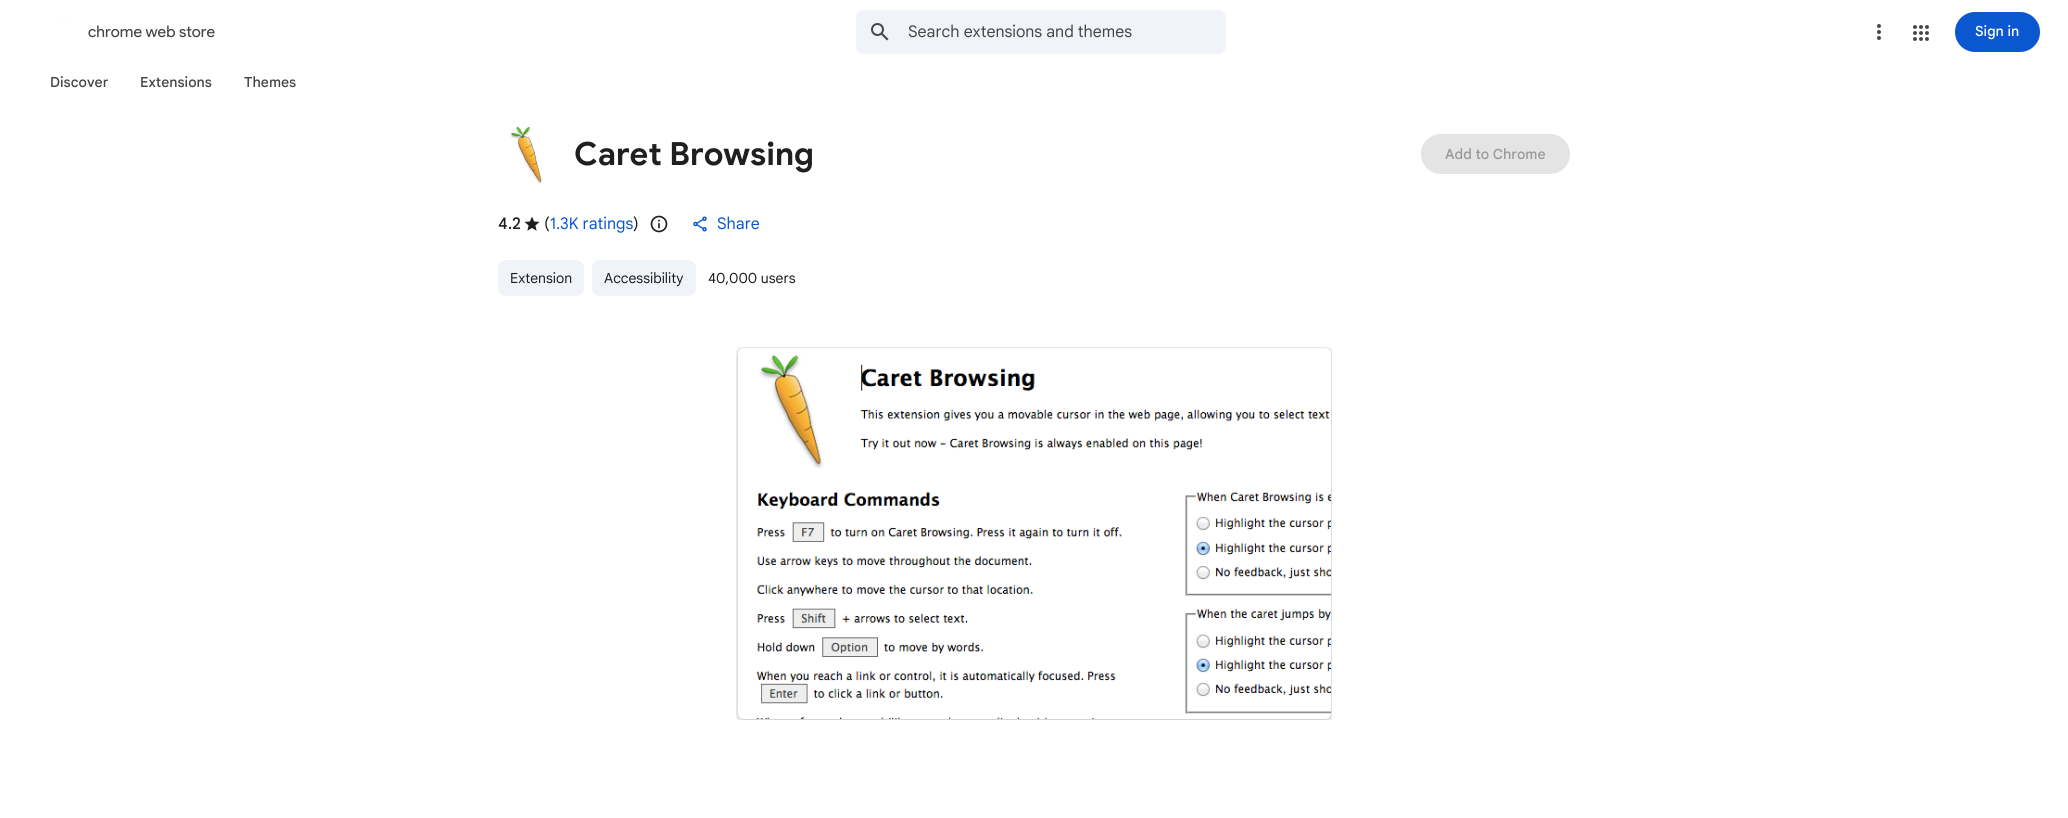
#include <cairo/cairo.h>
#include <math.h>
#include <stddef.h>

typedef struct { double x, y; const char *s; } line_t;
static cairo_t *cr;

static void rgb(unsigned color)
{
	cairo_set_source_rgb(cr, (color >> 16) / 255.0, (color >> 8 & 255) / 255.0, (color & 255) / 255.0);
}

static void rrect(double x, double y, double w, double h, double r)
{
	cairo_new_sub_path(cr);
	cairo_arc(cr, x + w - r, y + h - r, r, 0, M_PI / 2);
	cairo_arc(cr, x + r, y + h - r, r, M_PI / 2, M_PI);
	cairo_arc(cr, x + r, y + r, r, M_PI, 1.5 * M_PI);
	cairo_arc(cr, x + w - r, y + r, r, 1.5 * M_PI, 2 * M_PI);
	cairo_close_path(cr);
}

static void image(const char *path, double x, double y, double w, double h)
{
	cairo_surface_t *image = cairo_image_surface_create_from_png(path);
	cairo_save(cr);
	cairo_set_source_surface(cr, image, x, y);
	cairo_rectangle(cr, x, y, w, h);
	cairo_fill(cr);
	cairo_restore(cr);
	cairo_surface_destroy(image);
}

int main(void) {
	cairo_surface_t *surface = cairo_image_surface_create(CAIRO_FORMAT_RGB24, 2068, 818);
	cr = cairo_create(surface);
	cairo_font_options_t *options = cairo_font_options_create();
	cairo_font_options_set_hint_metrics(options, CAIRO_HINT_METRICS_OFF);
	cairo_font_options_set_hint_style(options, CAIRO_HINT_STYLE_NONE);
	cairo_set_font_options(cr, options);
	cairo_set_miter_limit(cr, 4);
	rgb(0xffffff);
	cairo_paint(cr);
	image("img/1.png", 61, 21, 6, 1);
	rgb(0xf0f4f9);
	rrect(856, 10, 370, 44, 8);
	cairo_fill(cr);
	image("img/2.png", 871, 23, 18, 18);
	image("img/3.png", 1877, 24, 4, 16);
	image("img/4.png", 1913, 25, 16, 16);
	rgb(0x0b57d0);
	rrect(1955, 12, 85, 40, 20);
	cairo_fill(cr);
	image("img/5.png", 510, 126, 32, 58);
	rgb(0xe4e4e4);
	rrect(1421, 134, 149, 40, 20);
	cairo_fill(cr);
	image("img/6.png", 524, 216, 16, 15);
	image("img/7.png", 650, 215, 18, 18);
	image("img/8.png", 693, 216, 14, 16);
	rgb(0xf0f4f9);
	rrect(498, 260, 86, 36, 8);
	cairo_fill(cr);
	rrect(592, 260, 104, 36, 8);
	cairo_fill(cr);
	image("img/9.png", 736, 347, 596, 373);
	cairo_select_font_face(cr, "Product Sans", CAIRO_FONT_SLANT_NORMAL, CAIRO_FONT_WEIGHT_NORMAL);
	cairo_set_font_size(cr, 16);
	rgb(0x444746);
	cairo_move_to(cr, 88, 37);
	cairo_show_text(cr, "chrome web store");
	cairo_select_font_face(cr, "Google Sans", CAIRO_FONT_SLANT_NORMAL, CAIRO_FONT_WEIGHT_NORMAL);
	cairo_move_to(cr, 908, 37);
	cairo_show_text(cr, "Search extensions and themes");
	cairo_select_font_face(cr, "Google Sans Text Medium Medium", CAIRO_FONT_SLANT_NORMAL, CAIRO_FONT_WEIGHT_NORMAL);
	cairo_set_font_size(cr, 14);
	rgb(0xffffff);
	cairo_move_to(cr, 1975, 36);
	cairo_show_text(cr, "Sign in");
	rgb(0x444746);
	{
		static const line_t items[] = {
			{50, 87, "Discover"},
			{140, 87, "Extensions"},
			{244, 87, "Themes"},
		};
		for (size_t i = 0; i < sizeof items / sizeof *items; i++) {
			cairo_move_to(cr, items[i].x, items[i].y);
			cairo_show_text(cr, items[i].s);
		}
	}
	cairo_select_font_face(cr, "Google Sans", CAIRO_FONT_SLANT_NORMAL, CAIRO_FONT_WEIGHT_BOLD);
	cairo_set_font_size(cr, 32);
	rgb(0x1f1f1f);
	cairo_move_to(cr, 574, 165);
	cairo_show_text(cr, "Caret Browsing");
	cairo_select_font_face(cr, "Google Sans Text Medium Medium", CAIRO_FONT_SLANT_NORMAL, CAIRO_FONT_WEIGHT_NORMAL);
	cairo_set_font_size(cr, 14);
	rgb(0x999999);
	cairo_move_to(cr, 1445, 159);
	cairo_show_text(cr, "Add to Chrome");
	cairo_select_font_face(cr, "Google Sans Medium", CAIRO_FONT_SLANT_NORMAL, CAIRO_FONT_WEIGHT_NORMAL);
	cairo_set_font_size(cr, 16);
	rgb(0x1f1f1f);
	cairo_move_to(cr, 498, 229);
	cairo_show_text(cr, "4.2");
	cairo_select_font_face(cr, "Google Sans", CAIRO_FONT_SLANT_NORMAL, CAIRO_FONT_WEIGHT_NORMAL);
	cairo_move_to(cr, 544, 229);
	cairo_show_text(cr, "(");
	rgb(0x0b57d0);
	cairo_move_to(cr, 550, 229);
	cairo_show_text(cr, "1.3K ratings");
	rgb(0x1f1f1f);
	cairo_move_to(cr, 633, 229);
	cairo_show_text(cr, ")");
	cairo_select_font_face(cr, "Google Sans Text", CAIRO_FONT_SLANT_NORMAL, CAIRO_FONT_WEIGHT_NORMAL);
	rgb(0x0b57d0);
	cairo_move_to(cr, 717, 229);
	cairo_show_text(cr, "Share");
	cairo_select_font_face(cr, "Google Sans", CAIRO_FONT_SLANT_NORMAL, CAIRO_FONT_WEIGHT_NORMAL);
	cairo_set_font_size(cr, 14);
	rgb(0x1f1f1f);
	{
		static const line_t items[] = {
			{510, 283, "Extension"},
			{604, 283, "Accessibility"},
			{708, 283, "40,000 users"},
		};
		for (size_t i = 0; i < sizeof items / sizeof *items; i++) {
			cairo_move_to(cr, items[i].x, items[i].y);
			cairo_show_text(cr, items[i].s);
		}
	}
	cairo_surface_write_to_png(surface, "page.png");
	cairo_font_options_destroy(options);
	cairo_destroy(cr);
	cairo_surface_destroy(surface);
	return 0;
}
